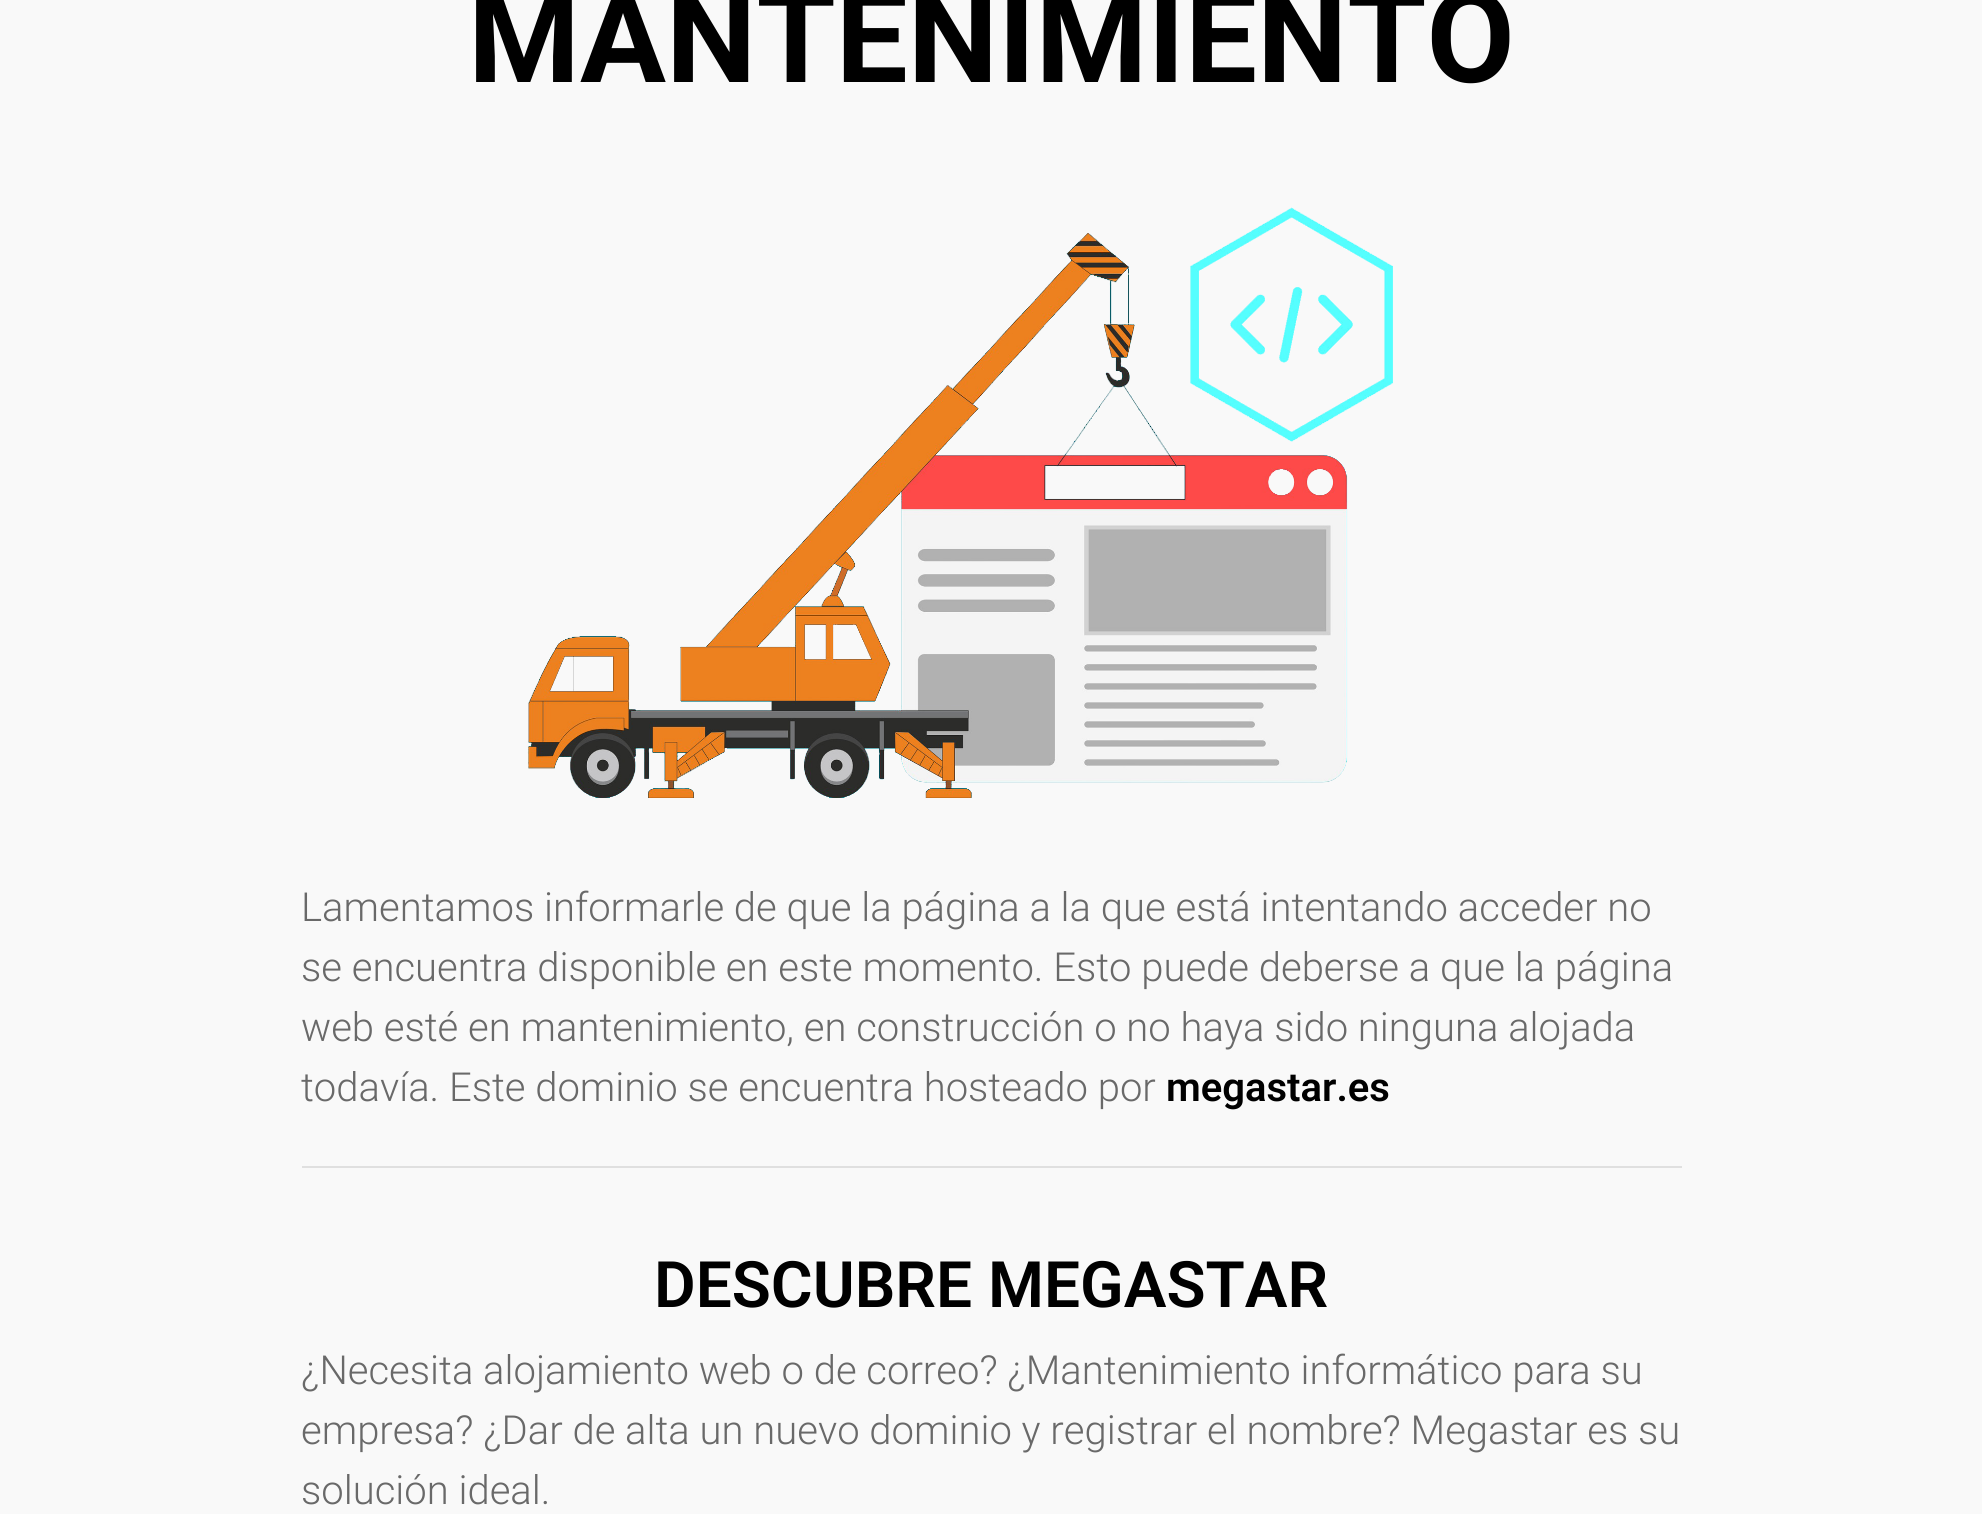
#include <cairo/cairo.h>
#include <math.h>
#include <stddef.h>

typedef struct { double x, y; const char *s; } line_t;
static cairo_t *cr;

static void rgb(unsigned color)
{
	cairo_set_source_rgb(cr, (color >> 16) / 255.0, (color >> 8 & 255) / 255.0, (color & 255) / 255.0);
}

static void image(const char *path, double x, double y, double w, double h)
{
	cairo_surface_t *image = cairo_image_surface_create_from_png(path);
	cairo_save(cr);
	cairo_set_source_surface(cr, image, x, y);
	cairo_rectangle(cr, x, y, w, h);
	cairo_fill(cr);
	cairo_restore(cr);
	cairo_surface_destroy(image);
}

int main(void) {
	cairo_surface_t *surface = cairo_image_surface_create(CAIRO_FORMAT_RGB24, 1982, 1514);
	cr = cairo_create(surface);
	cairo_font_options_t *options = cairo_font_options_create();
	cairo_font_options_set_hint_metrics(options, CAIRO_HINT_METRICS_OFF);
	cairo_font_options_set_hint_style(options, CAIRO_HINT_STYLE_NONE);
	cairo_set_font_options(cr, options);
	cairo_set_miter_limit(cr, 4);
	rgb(0xf9f9f9);
	cairo_paint(cr);
	image("img/1.png", 527, 207, 866, 591);
	rgb(0xe0e0e0);
	cairo_rectangle(cr, 302, 1166, 1380, 2);
	cairo_fill(cr);
	cairo_select_font_face(cr, "Roboto", CAIRO_FONT_SLANT_NORMAL, CAIRO_FONT_WEIGHT_BOLD);
	cairo_set_font_size(cr, 128);
	rgb(0x000000);
	cairo_move_to(cr, 468, 82);
	cairo_show_text(cr, "MANTENIMIENTO");
	cairo_select_font_face(cr, "Roboto Light", CAIRO_FONT_SLANT_NORMAL, CAIRO_FONT_WEIGHT_NORMAL);
	cairo_set_font_size(cr, 40);
	rgb(0x696969);
	{
		static const line_t items[] = {
			{301, 921, "Lamentamos informarle de que la página a la que está intentando acceder no"},
			{301, 981, "se encuentra disponible en este momento. Esto puede deberse a que la página"},
			{301, 1041, "web esté en mantenimiento, en construcción o no haya sido ninguna alojada"},
			{301, 1101, "todavía. Este dominio se encuentra hosteado por"},
		};
		for (size_t i = 0; i < sizeof items / sizeof *items; i++) {
			cairo_move_to(cr, items[i].x, items[i].y);
			cairo_show_text(cr, items[i].s);
		}
	}
	cairo_select_font_face(cr, "Roboto SemiBold", CAIRO_FONT_SLANT_NORMAL, CAIRO_FONT_WEIGHT_NORMAL);
	rgb(0x000000);
	cairo_move_to(cr, 1166, 1101);
	cairo_show_text(cr, "megastar.es");
	cairo_set_font_size(cr, 64);
	cairo_move_to(cr, 654, 1307);
	cairo_show_text(cr, "DESCUBRE MEGASTAR");
	cairo_select_font_face(cr, "Roboto Light", CAIRO_FONT_SLANT_NORMAL, CAIRO_FONT_WEIGHT_NORMAL);
	cairo_set_font_size(cr, 40);
	rgb(0x696969);
	{
		static const line_t items[] = {
			{301, 1384, "¿Necesita alojamiento web o de correo? ¿Mantenimiento informático para su"},
			{301, 1444, "empresa? ¿Dar de alta un nuevo dominio y registrar el nombre? Megastar es su"},
			{301, 1504, "solución ideal."},
		};
		for (size_t i = 0; i < sizeof items / sizeof *items; i++) {
			cairo_move_to(cr, items[i].x, items[i].y);
			cairo_show_text(cr, items[i].s);
		}
	}
	cairo_surface_write_to_png(surface, "page.png");
	cairo_font_options_destroy(options);
	cairo_destroy(cr);
	cairo_surface_destroy(surface);
	return 0;
}
